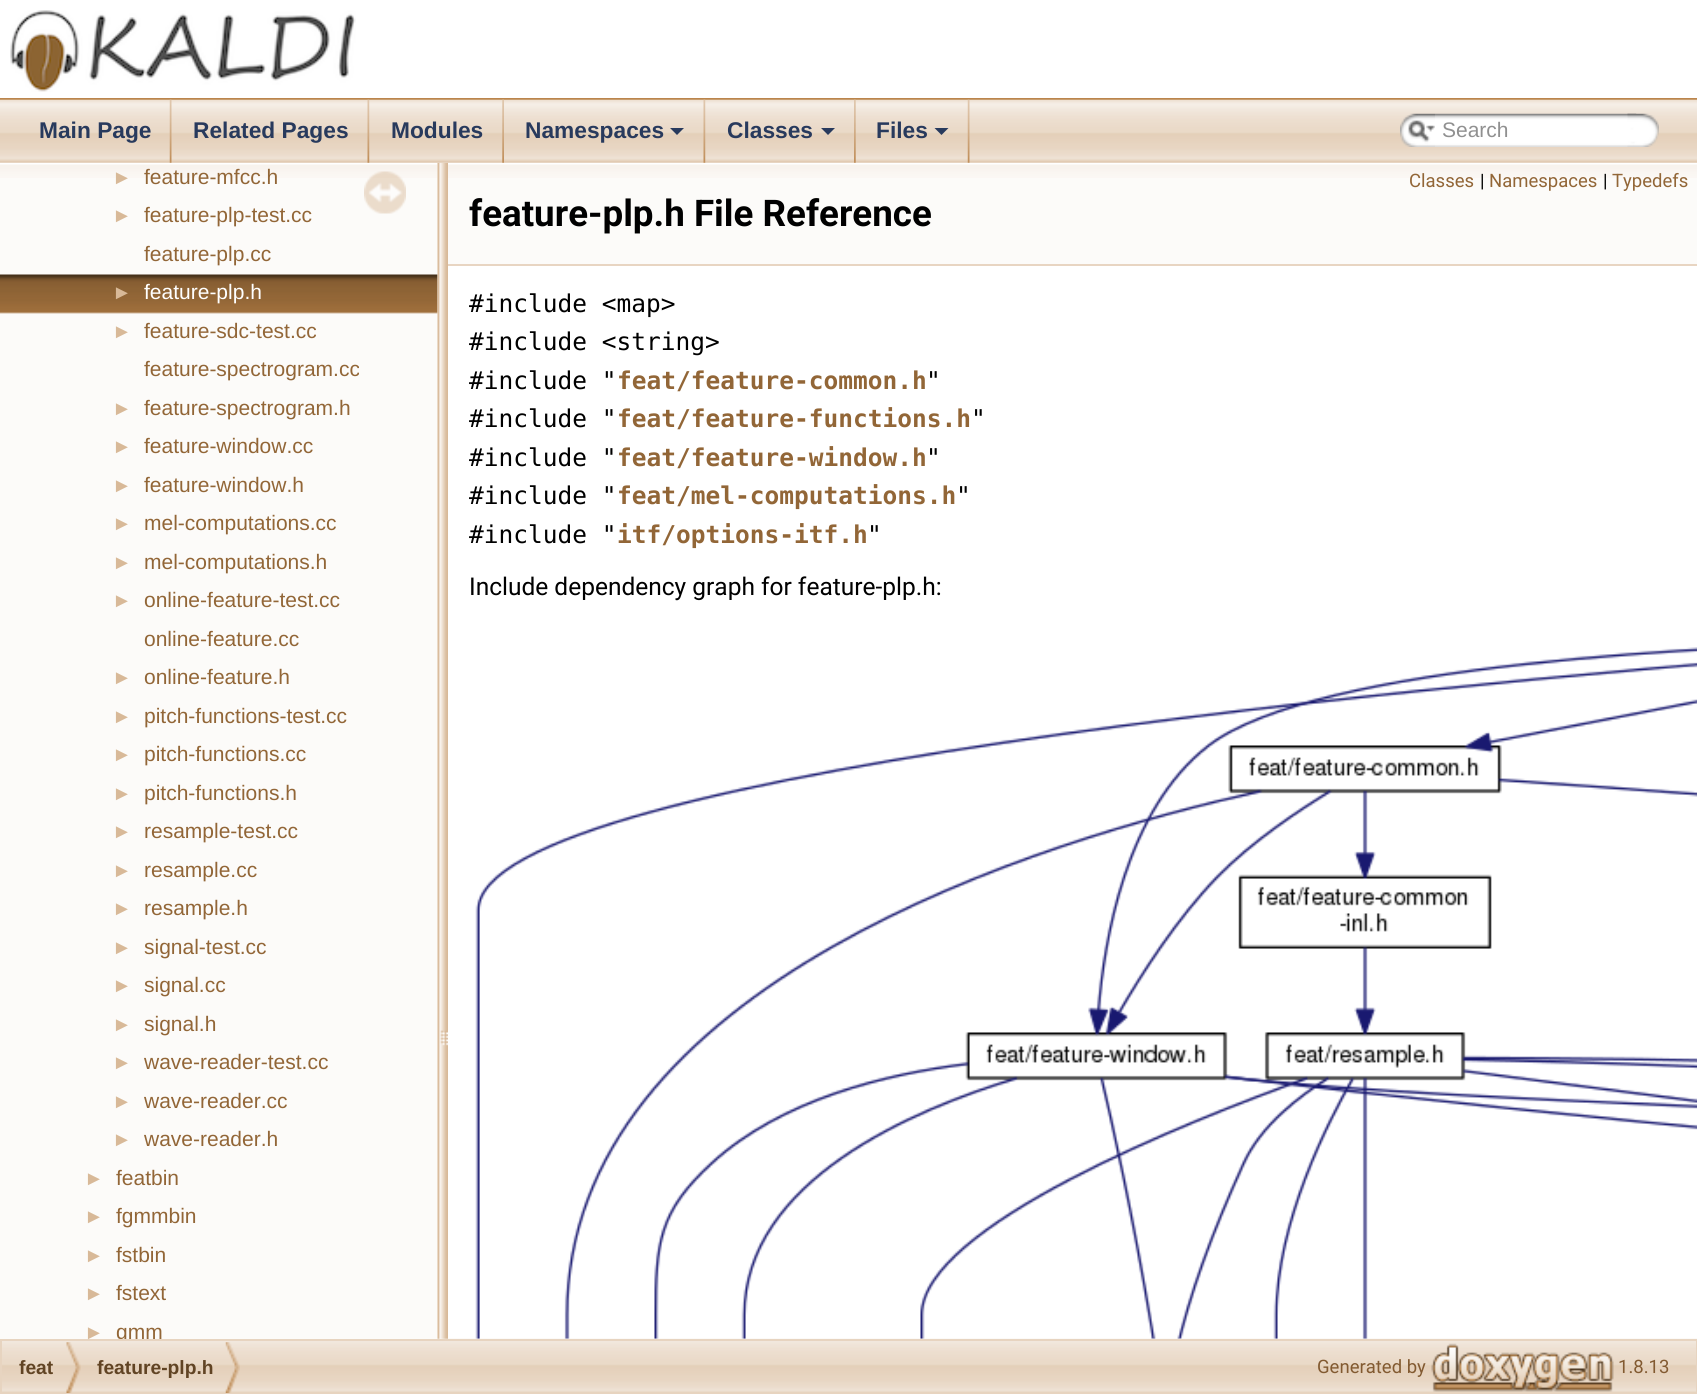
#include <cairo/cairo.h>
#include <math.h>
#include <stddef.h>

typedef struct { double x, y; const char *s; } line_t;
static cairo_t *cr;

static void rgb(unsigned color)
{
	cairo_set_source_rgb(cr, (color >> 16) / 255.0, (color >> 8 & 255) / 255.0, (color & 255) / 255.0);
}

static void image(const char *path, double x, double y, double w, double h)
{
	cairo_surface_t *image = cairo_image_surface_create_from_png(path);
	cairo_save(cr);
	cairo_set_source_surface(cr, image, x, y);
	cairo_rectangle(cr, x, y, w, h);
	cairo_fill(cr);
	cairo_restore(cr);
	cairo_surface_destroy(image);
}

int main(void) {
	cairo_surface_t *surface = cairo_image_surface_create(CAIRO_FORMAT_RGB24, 1697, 1394);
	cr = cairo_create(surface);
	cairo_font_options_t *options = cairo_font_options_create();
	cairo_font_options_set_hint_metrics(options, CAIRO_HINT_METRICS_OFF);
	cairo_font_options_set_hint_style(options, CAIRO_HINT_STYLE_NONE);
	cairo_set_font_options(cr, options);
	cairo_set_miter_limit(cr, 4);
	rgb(0xffffff);
	cairo_paint(cr);
	rgb(0xbb854c);
	cairo_rectangle(cr, 0, 98, 1697, 2);
	cairo_fill(cr);
	image("img/1.png", 10, 10, 346, 82);
	image("img/16.png", 475, 647, 1222, 692);
	image("img/17.png", 2, 1338, 1695, 55);
	rgb(0xfcfbf9);
	cairo_rectangle(cr, 0, 163, 438, 1176);
	cairo_fill(cr);
	image("img/11.png", 0, 163, 438, 15);
	image("img/12.png", 0, 274, 438, 40);
	image("img/14.png", 437, 162, 11, 1177);
	image("img/2.png", 0, 99, 1697, 64);
	image("img/3.png", 169, 99, 3, 64);
	image("img/4.png", 367, 99, 3, 64);
	image("img/5.png", 502, 99, 2, 64);
	image("img/4.png", 703, 99, 3, 64);
	rgb(0x283a5d);
	cairo_new_path(cr);
	cairo_move_to(cr, 670, 128);
	cairo_line_to(cr, 684, 128);
	cairo_line_to(cr, 677, 135);
	cairo_close_path(cr);
	cairo_fill(cr);
	image("img/6.png", 854, 99, 2, 64);
	cairo_new_path(cr);
	cairo_move_to(cr, 821, 128);
	cairo_line_to(cr, 835, 128);
	cairo_line_to(cr, 828, 135);
	cairo_close_path(cr);
	cairo_fill(cr);
	image("img/3.png", 967, 99, 3, 64);
	cairo_new_path(cr);
	cairo_move_to(cr, 934.5, 128);
	cairo_line_to(cr, 948.5, 128);
	cairo_line_to(cr, 941.5, 135);
	cairo_close_path(cr);
	cairo_fill(cr);
	image("img/7.png", 1400, 113, 35, 34);
	image("img/8.png", 1408, 120, 27, 22);
	image("img/9.png", 1435, 113, 202, 34);
	image("img/10.png", 1627, 113, 32, 34);
	image("img/13.png", 364, 171, 42, 43);
	rgb(0xfcfbf9);
	cairo_rectangle(cr, 448, 178, 1249, 86);
	cairo_fill(cr);
	image("img/15.png", 448, 163, 1249, 15);
	rgb(0xe8d5c2);
	cairo_rectangle(cr, 448, 264, 1249, 2);
	cairo_fill(cr);
	cairo_rectangle(cr, 1, 1340, 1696, 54);
	rgb(0xe7d4c0);
	cairo_stroke(cr);
	image("img/18.png", 66, 1342, 15, 51);
	image("img/19.png", 225, 1342, 15, 51);
	image("img/20.png", 1431, 1343, 183, 49);
	cairo_select_font_face(cr, "Liberation Sans", CAIRO_FONT_SLANT_NORMAL, CAIRO_FONT_WEIGHT_BOLD);
	cairo_set_font_size(cr, 22.75);
	rgb(0x283a5d);
	{
		static const line_t items[] = {
			{39, 138, "Main Page"},
			{193, 138, "Related Pages"},
			{391, 138, "Modules"},
			{525, 138, "Namespaces"},
			{727, 138, "Classes"},
			{876, 138, "Files"},
		};
		for (size_t i = 0; i < sizeof items / sizeof *items; i++) {
			cairo_move_to(cr, items[i].x, items[i].y);
			cairo_show_text(cr, items[i].s);
		}
	}
	cairo_select_font_face(cr, "Liberation Sans", CAIRO_FONT_SLANT_NORMAL, CAIRO_FONT_WEIGHT_NORMAL);
	cairo_set_font_size(cr, 21);
	rgb(0x909090);
	cairo_move_to(cr, 1442, 137);
	cairo_show_text(cr, "Search");
	cairo_set_font_size(cr, 20);
	rgb(0xd8b998);
	cairo_move_to(cr, 112, 184);
	cairo_show_text(cr, "►");
	cairo_set_font_size(cr, 21);
	rgb(0x926637);
	cairo_move_to(cr, 144, 184);
	cairo_show_text(cr, "feature-mfcc.h");
	cairo_set_font_size(cr, 20);
	rgb(0xd8b998);
	cairo_move_to(cr, 112, 222);
	cairo_show_text(cr, "►");
	cairo_set_font_size(cr, 21);
	rgb(0x926637);
	cairo_move_to(cr, 144, 222);
	cairo_show_text(cr, "feature-plp-test.cc");
	cairo_move_to(cr, 144, 261);
	cairo_show_text(cr, "feature-plp.cc");
	cairo_set_font_size(cr, 20);
	rgb(0xd8b998);
	cairo_move_to(cr, 112, 299);
	cairo_show_text(cr, "►");
	cairo_set_font_size(cr, 21);
	rgb(0xffffff);
	cairo_move_to(cr, 144, 299);
	cairo_show_text(cr, "feature-plp.h");
	cairo_set_font_size(cr, 20);
	rgb(0xd8b998);
	cairo_move_to(cr, 112, 338);
	cairo_show_text(cr, "►");
	cairo_set_font_size(cr, 21);
	rgb(0x926637);
	cairo_move_to(cr, 144, 338);
	cairo_show_text(cr, "feature-sdc-test.cc");
	cairo_move_to(cr, 144, 376);
	cairo_show_text(cr, "feature-spectrogram.cc");
	cairo_set_font_size(cr, 20);
	rgb(0xd8b998);
	cairo_move_to(cr, 112, 415);
	cairo_show_text(cr, "►");
	cairo_set_font_size(cr, 21);
	rgb(0x926637);
	cairo_move_to(cr, 144, 415);
	cairo_show_text(cr, "feature-spectrogram.h");
	cairo_set_font_size(cr, 20);
	rgb(0xd8b998);
	cairo_move_to(cr, 112, 453);
	cairo_show_text(cr, "►");
	cairo_set_font_size(cr, 21);
	rgb(0x926637);
	cairo_move_to(cr, 144, 453);
	cairo_show_text(cr, "feature-window.cc");
	cairo_set_font_size(cr, 20);
	rgb(0xd8b998);
	cairo_move_to(cr, 112, 492);
	cairo_show_text(cr, "►");
	cairo_set_font_size(cr, 21);
	rgb(0x926637);
	cairo_move_to(cr, 144, 492);
	cairo_show_text(cr, "feature-window.h");
	cairo_set_font_size(cr, 20);
	rgb(0xd8b998);
	cairo_move_to(cr, 112, 530);
	cairo_show_text(cr, "►");
	cairo_set_font_size(cr, 21);
	rgb(0x926637);
	cairo_move_to(cr, 144, 530);
	cairo_show_text(cr, "mel-computations.cc");
	cairo_set_font_size(cr, 20);
	rgb(0xd8b998);
	cairo_move_to(cr, 112, 569);
	cairo_show_text(cr, "►");
	cairo_set_font_size(cr, 21);
	rgb(0x926637);
	cairo_move_to(cr, 144, 569);
	cairo_show_text(cr, "mel-computations.h");
	cairo_set_font_size(cr, 20);
	rgb(0xd8b998);
	cairo_move_to(cr, 112, 607);
	cairo_show_text(cr, "►");
	cairo_set_font_size(cr, 21);
	rgb(0x926637);
	cairo_move_to(cr, 144, 607);
	cairo_show_text(cr, "online-feature-test.cc");
	cairo_move_to(cr, 144, 646);
	cairo_show_text(cr, "online-feature.cc");
	cairo_set_font_size(cr, 20);
	rgb(0xd8b998);
	cairo_move_to(cr, 112, 684);
	cairo_show_text(cr, "►");
	cairo_set_font_size(cr, 21);
	rgb(0x926637);
	cairo_move_to(cr, 144, 684);
	cairo_show_text(cr, "online-feature.h");
	cairo_set_font_size(cr, 20);
	rgb(0xd8b998);
	cairo_move_to(cr, 112, 723);
	cairo_show_text(cr, "►");
	cairo_set_font_size(cr, 21);
	rgb(0x926637);
	cairo_move_to(cr, 144, 723);
	cairo_show_text(cr, "pitch-functions-test.cc");
	cairo_set_font_size(cr, 20);
	rgb(0xd8b998);
	cairo_move_to(cr, 112, 761);
	cairo_show_text(cr, "►");
	cairo_set_font_size(cr, 21);
	rgb(0x926637);
	cairo_move_to(cr, 144, 761);
	cairo_show_text(cr, "pitch-functions.cc");
	cairo_set_font_size(cr, 20);
	rgb(0xd8b998);
	cairo_move_to(cr, 112, 800);
	cairo_show_text(cr, "►");
	cairo_set_font_size(cr, 21);
	rgb(0x926637);
	cairo_move_to(cr, 144, 800);
	cairo_show_text(cr, "pitch-functions.h");
	cairo_set_font_size(cr, 20);
	rgb(0xd8b998);
	cairo_move_to(cr, 112, 838);
	cairo_show_text(cr, "►");
	cairo_set_font_size(cr, 21);
	rgb(0x926637);
	cairo_move_to(cr, 144, 838);
	cairo_show_text(cr, "resample-test.cc");
	cairo_set_font_size(cr, 20);
	rgb(0xd8b998);
	cairo_move_to(cr, 112, 877);
	cairo_show_text(cr, "►");
	cairo_set_font_size(cr, 21);
	rgb(0x926637);
	cairo_move_to(cr, 144, 877);
	cairo_show_text(cr, "resample.cc");
	cairo_set_font_size(cr, 20);
	rgb(0xd8b998);
	cairo_move_to(cr, 112, 915);
	cairo_show_text(cr, "►");
	cairo_set_font_size(cr, 21);
	rgb(0x926637);
	cairo_move_to(cr, 144, 915);
	cairo_show_text(cr, "resample.h");
	cairo_set_font_size(cr, 20);
	rgb(0xd8b998);
	cairo_move_to(cr, 112, 954);
	cairo_show_text(cr, "►");
	cairo_set_font_size(cr, 21);
	rgb(0x926637);
	cairo_move_to(cr, 144, 954);
	cairo_show_text(cr, "signal-test.cc");
	cairo_set_font_size(cr, 20);
	rgb(0xd8b998);
	cairo_move_to(cr, 112, 992);
	cairo_show_text(cr, "►");
	cairo_set_font_size(cr, 21);
	rgb(0x926637);
	cairo_move_to(cr, 144, 992);
	cairo_show_text(cr, "signal.cc");
	cairo_set_font_size(cr, 20);
	rgb(0xd8b998);
	cairo_move_to(cr, 112, 1031);
	cairo_show_text(cr, "►");
	cairo_set_font_size(cr, 21);
	rgb(0x926637);
	cairo_move_to(cr, 144, 1031);
	cairo_show_text(cr, "signal.h");
	cairo_set_font_size(cr, 20);
	rgb(0xd8b998);
	cairo_move_to(cr, 112, 1069);
	cairo_show_text(cr, "►");
	cairo_set_font_size(cr, 21);
	rgb(0x926637);
	cairo_move_to(cr, 144, 1069);
	cairo_show_text(cr, "wave-reader-test.cc");
	cairo_set_font_size(cr, 20);
	rgb(0xd8b998);
	cairo_move_to(cr, 112, 1108);
	cairo_show_text(cr, "►");
	cairo_set_font_size(cr, 21);
	rgb(0x926637);
	cairo_move_to(cr, 144, 1108);
	cairo_show_text(cr, "wave-reader.cc");
	cairo_set_font_size(cr, 20);
	rgb(0xd8b998);
	cairo_move_to(cr, 112, 1146);
	cairo_show_text(cr, "►");
	cairo_set_font_size(cr, 21);
	rgb(0x926637);
	cairo_move_to(cr, 144, 1146);
	cairo_show_text(cr, "wave-reader.h");
	cairo_set_font_size(cr, 20);
	rgb(0xd8b998);
	cairo_move_to(cr, 84, 1185);
	cairo_show_text(cr, "►");
	cairo_set_font_size(cr, 21);
	rgb(0x926637);
	cairo_move_to(cr, 116, 1185);
	cairo_show_text(cr, "featbin");
	cairo_set_font_size(cr, 20);
	rgb(0xd8b998);
	cairo_move_to(cr, 84, 1223);
	cairo_show_text(cr, "►");
	cairo_set_font_size(cr, 21);
	rgb(0x926637);
	cairo_move_to(cr, 116, 1223);
	cairo_show_text(cr, "fgmmbin");
	cairo_set_font_size(cr, 20);
	rgb(0xd8b998);
	cairo_move_to(cr, 84, 1262);
	cairo_show_text(cr, "►");
	cairo_set_font_size(cr, 21);
	rgb(0x926637);
	cairo_move_to(cr, 116, 1262);
	cairo_show_text(cr, "fstbin");
	cairo_set_font_size(cr, 20);
	rgb(0xd8b998);
	cairo_move_to(cr, 84, 1300);
	cairo_show_text(cr, "►");
	cairo_set_font_size(cr, 21);
	rgb(0x926637);
	cairo_move_to(cr, 116, 1300);
	cairo_show_text(cr, "fstext");
	cairo_set_font_size(cr, 20);
	rgb(0xd8b998);
	cairo_move_to(cr, 84, 1339);
	cairo_show_text(cr, "►");
	cairo_save(cr);
	cairo_rectangle(cr, 0, 163, 438, 1176);
	cairo_clip(cr);
	cairo_set_font_size(cr, 21);
	rgb(0x926637);
	cairo_move_to(cr, 116, 1339);
	cairo_show_text(cr, "gmm");
	cairo_restore(cr);
	cairo_select_font_face(cr, "Roboto", CAIRO_FONT_SLANT_NORMAL, CAIRO_FONT_WEIGHT_NORMAL);
	cairo_set_font_size(cr, 18.5);
	rgb(0x926637);
	cairo_move_to(cr, 1409, 187);
	cairo_show_text(cr, "Classes");
	rgb(0x000000);
	cairo_move_to(cr, 1480, 187);
	cairo_show_text(cr, "|");
	rgb(0x926637);
	cairo_move_to(cr, 1489, 187);
	cairo_show_text(cr, "Namespaces");
	rgb(0x000000);
	cairo_move_to(cr, 1603, 187);
	cairo_show_text(cr, "|");
	rgb(0x926637);
	cairo_move_to(cr, 1612, 187);
	cairo_show_text(cr, "Typedefs");
	cairo_select_font_face(cr, "Roboto", CAIRO_FONT_SLANT_NORMAL, CAIRO_FONT_WEIGHT_BOLD);
	cairo_set_font_size(cr, 36.75);
	rgb(0x000000);
	cairo_move_to(cr, 469, 226);
	cairo_show_text(cr, "feature-plp.h File Reference");
	cairo_select_font_face(cr, "DejaVu Sans Mono", CAIRO_FONT_SLANT_NORMAL, CAIRO_FONT_WEIGHT_NORMAL);
	cairo_set_font_size(cr, 24.5);
	{
		static const line_t items[] = {
			{469, 312, "#include <map>"},
			{469, 350, "#include <string>"},
			{469, 389, "#include \""},
		};
		for (size_t i = 0; i < sizeof items / sizeof *items; i++) {
			cairo_move_to(cr, items[i].x, items[i].y);
			cairo_show_text(cr, items[i].s);
		}
	}
	cairo_select_font_face(cr, "DejaVu Sans Mono", CAIRO_FONT_SLANT_NORMAL, CAIRO_FONT_WEIGHT_BOLD);
	rgb(0x926637);
	cairo_move_to(cr, 617, 389);
	cairo_show_text(cr, "feat/feature-common.h");
	cairo_select_font_face(cr, "DejaVu Sans Mono", CAIRO_FONT_SLANT_NORMAL, CAIRO_FONT_WEIGHT_NORMAL);
	rgb(0x000000);
	cairo_move_to(cr, 926, 389);
	cairo_show_text(cr, "\"");
	cairo_move_to(cr, 469, 427);
	cairo_show_text(cr, "#include \"");
	cairo_select_font_face(cr, "DejaVu Sans Mono", CAIRO_FONT_SLANT_NORMAL, CAIRO_FONT_WEIGHT_BOLD);
	rgb(0x926637);
	cairo_move_to(cr, 617, 427);
	cairo_show_text(cr, "feat/feature-functions.h");
	cairo_select_font_face(cr, "DejaVu Sans Mono", CAIRO_FONT_SLANT_NORMAL, CAIRO_FONT_WEIGHT_NORMAL);
	rgb(0x000000);
	cairo_move_to(cr, 971, 427);
	cairo_show_text(cr, "\"");
	cairo_move_to(cr, 469, 466);
	cairo_show_text(cr, "#include \"");
	cairo_select_font_face(cr, "DejaVu Sans Mono", CAIRO_FONT_SLANT_NORMAL, CAIRO_FONT_WEIGHT_BOLD);
	rgb(0x926637);
	cairo_move_to(cr, 617, 466);
	cairo_show_text(cr, "feat/feature-window.h");
	cairo_select_font_face(cr, "DejaVu Sans Mono", CAIRO_FONT_SLANT_NORMAL, CAIRO_FONT_WEIGHT_NORMAL);
	rgb(0x000000);
	cairo_move_to(cr, 926, 466);
	cairo_show_text(cr, "\"");
	cairo_move_to(cr, 469, 504);
	cairo_show_text(cr, "#include \"");
	cairo_select_font_face(cr, "DejaVu Sans Mono", CAIRO_FONT_SLANT_NORMAL, CAIRO_FONT_WEIGHT_BOLD);
	rgb(0x926637);
	cairo_move_to(cr, 617, 504);
	cairo_show_text(cr, "feat/mel-computations.h");
	cairo_select_font_face(cr, "DejaVu Sans Mono", CAIRO_FONT_SLANT_NORMAL, CAIRO_FONT_WEIGHT_NORMAL);
	rgb(0x000000);
	cairo_move_to(cr, 956, 504);
	cairo_show_text(cr, "\"");
	cairo_move_to(cr, 469, 543);
	cairo_show_text(cr, "#include \"");
	cairo_select_font_face(cr, "DejaVu Sans Mono", CAIRO_FONT_SLANT_NORMAL, CAIRO_FONT_WEIGHT_BOLD);
	rgb(0x926637);
	cairo_move_to(cr, 617, 543);
	cairo_show_text(cr, "itf/options-itf.h");
	cairo_select_font_face(cr, "DejaVu Sans Mono", CAIRO_FONT_SLANT_NORMAL, CAIRO_FONT_WEIGHT_NORMAL);
	rgb(0x000000);
	cairo_move_to(cr, 867, 543);
	cairo_show_text(cr, "\"");
	cairo_select_font_face(cr, "Roboto", CAIRO_FONT_SLANT_NORMAL, CAIRO_FONT_WEIGHT_NORMAL);
	cairo_move_to(cr, 469, 595);
	cairo_show_text(cr, "Include dependency graph for feature-plp.h:");
	cairo_select_font_face(cr, "Liberation Sans", CAIRO_FONT_SLANT_NORMAL, CAIRO_FONT_WEIGHT_BOLD);
	cairo_set_font_size(cr, 19.25);
	rgb(0x614424);
	cairo_move_to(cr, 19, 1374);
	cairo_show_text(cr, "feat");
	cairo_move_to(cr, 97, 1374);
	cairo_show_text(cr, "feature-plp.h");
	cairo_select_font_face(cr, "Roboto", CAIRO_FONT_SLANT_NORMAL, CAIRO_FONT_WEIGHT_NORMAL);
	cairo_set_font_size(cr, 18.5);
	rgb(0x825a31);
	cairo_move_to(cr, 1317, 1373);
	cairo_show_text(cr, "Generated by");
	cairo_move_to(cr, 1618, 1373);
	cairo_show_text(cr, "1.8.13");
	cairo_surface_write_to_png(surface, "page.png");
	cairo_font_options_destroy(options);
	cairo_destroy(cr);
	cairo_surface_destroy(surface);
	return 0;
}
